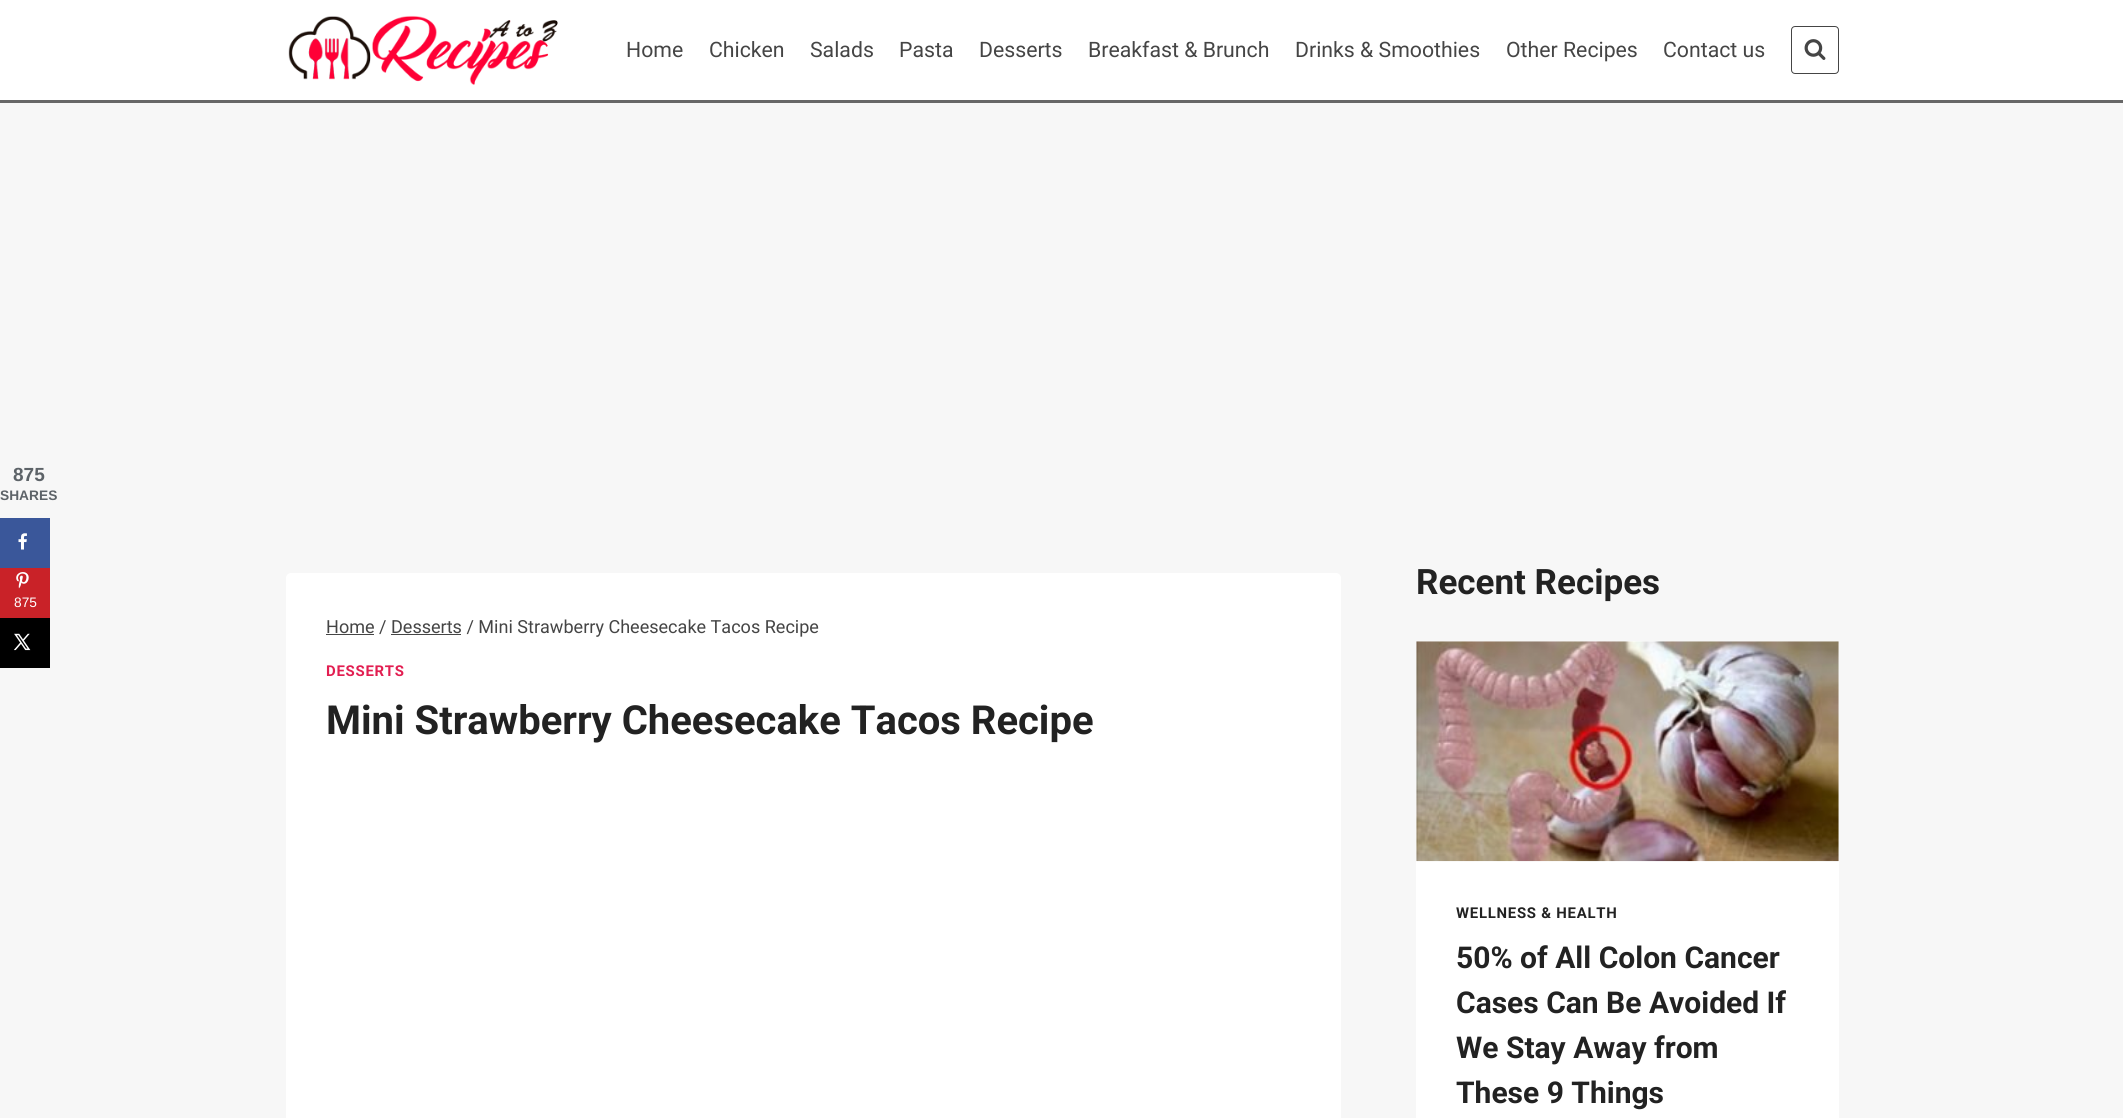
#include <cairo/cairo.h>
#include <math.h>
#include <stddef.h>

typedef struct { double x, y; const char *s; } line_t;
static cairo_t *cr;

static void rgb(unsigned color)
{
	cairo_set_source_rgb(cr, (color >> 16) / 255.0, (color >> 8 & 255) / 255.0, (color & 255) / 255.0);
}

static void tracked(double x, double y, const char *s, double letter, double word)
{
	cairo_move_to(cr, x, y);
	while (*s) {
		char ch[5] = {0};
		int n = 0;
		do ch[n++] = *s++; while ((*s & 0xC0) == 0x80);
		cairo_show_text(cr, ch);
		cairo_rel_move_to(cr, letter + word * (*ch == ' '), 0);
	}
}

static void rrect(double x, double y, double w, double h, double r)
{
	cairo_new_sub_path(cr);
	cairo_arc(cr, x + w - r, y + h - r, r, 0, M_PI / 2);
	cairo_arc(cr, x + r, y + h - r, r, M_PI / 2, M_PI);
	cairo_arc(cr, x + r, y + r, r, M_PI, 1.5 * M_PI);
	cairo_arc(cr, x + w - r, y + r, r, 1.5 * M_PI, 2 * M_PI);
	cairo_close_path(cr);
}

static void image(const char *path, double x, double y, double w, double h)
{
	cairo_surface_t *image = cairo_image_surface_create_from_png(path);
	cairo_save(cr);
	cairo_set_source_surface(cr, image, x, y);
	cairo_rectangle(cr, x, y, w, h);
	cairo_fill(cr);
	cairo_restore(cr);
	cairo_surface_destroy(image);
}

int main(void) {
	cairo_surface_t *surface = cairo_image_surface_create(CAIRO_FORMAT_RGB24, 2123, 1118);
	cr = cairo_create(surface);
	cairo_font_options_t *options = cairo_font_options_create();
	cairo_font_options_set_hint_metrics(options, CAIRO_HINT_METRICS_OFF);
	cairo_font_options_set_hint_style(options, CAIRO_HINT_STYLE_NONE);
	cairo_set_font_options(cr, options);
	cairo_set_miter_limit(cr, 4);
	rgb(0xf7f7f7);
	cairo_paint(cr);
	rgb(0x3a579a);
	cairo_rectangle(cr, 0, 518, 50, 50);
	cairo_fill(cr);
	image("img/1.png", 18, 533, 9, 17);
	rgb(0xc92228);
	cairo_rectangle(cr, 0, 568, 50, 50);
	cairo_fill(cr);
	image("img/2.png", 16, 572, 13, 17);
	rgb(0x000000);
	cairo_rectangle(cr, 0, 618, 50, 50);
	cairo_fill(cr);
	image("img/3.png", 14, 633, 17, 18);
	rgb(0xffffff);
	cairo_rectangle(cr, 0, 0, 2123, 100);
	cairo_fill(cr);
	rgb(0x676767);
	cairo_rectangle(cr, 0, 100, 2123, 3);
	cairo_fill(cr);
	image("img/4.png", 288, 15, 270, 70);
	rrect(1791.5, 26.5, 47, 47, 3.5);
	rgb(0x454545);
	cairo_set_line_width(cr, 1);
	cairo_stroke(cr);
	image("img/5.png", 1804, 39, 22, 21);
	rgb(0xffffff);
	rrect(286, 573, 1055, 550, 5);
	cairo_fill(cr);
	rgb(0x454545);
	cairo_rectangle(cr, 326, 634, 48, 1);
	cairo_fill(cr);
	cairo_rectangle(cr, 391, 634, 70, 1);
	cairo_fill(cr);
	rgb(0xffffff);
	rrect(1416, 641, 423, 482, 5);
	cairo_fill(cr);
	image("img/6.png", 1416, 641, 423, 221);
	cairo_select_font_face(cr, "Liberation Sans", CAIRO_FONT_SLANT_NORMAL, CAIRO_FONT_WEIGHT_BOLD);
	cairo_set_font_size(cr, 19);
	rgb(0x5d6368);
	cairo_move_to(cr, 13, 481);
	cairo_show_text(cr, "875");
	cairo_set_font_size(cr, 13.75);
	cairo_move_to(cr, 0, 500);
	cairo_show_text(cr, "SHARES");
	cairo_select_font_face(cr, "Liberation Sans", CAIRO_FONT_SLANT_NORMAL, CAIRO_FONT_WEIGHT_NORMAL);
	rgb(0xffffff);
	cairo_move_to(cr, 14, 607);
	cairo_show_text(cr, "875");
	cairo_select_font_face(cr, "Roboto", CAIRO_FONT_SLANT_NORMAL, CAIRO_FONT_WEIGHT_NORMAL);
	cairo_set_font_size(cr, 21.25);
	rgb(0x454545);
	{
		static const line_t items[] = {
			{626, 57, "Home"},
			{709, 57, "Chicken"},
			{810, 57, "Salads"},
			{899, 57, "Pasta"},
			{979, 57, "Desserts"},
			{1088, 57, "Breakfast & Brunch"},
			{1295, 57, "Drinks & Smoothies"},
			{1506, 57, "Other Recipes"},
			{1663, 57, "Contact us"},
		};
		for (size_t i = 0; i < sizeof items / sizeof *items; i++) {
			cairo_move_to(cr, items[i].x, items[i].y);
			cairo_show_text(cr, items[i].s);
		}
	}
	cairo_set_font_size(cr, 18.05);
	cairo_move_to(cr, 326, 633);
	cairo_show_text(cr, "Home / Desserts / Mini Strawberry Cheesecake Tacos Recipe");
	cairo_select_font_face(cr, "Roboto", CAIRO_FONT_SLANT_NORMAL, CAIRO_FONT_WEIGHT_BOLD);
	cairo_set_font_size(cr, 14.9);
	rgb(0xe21e51);
	tracked(326, 676, "DESSERTS", 0.75, 0);
	cairo_set_font_size(cr, 40);
	rgb(0x222222);
	cairo_move_to(cr, 326, 734);
	cairo_show_text(cr, "Mini Strawberry Cheesecake Tacos Recipe");
	cairo_set_font_size(cr, 35);
	cairo_move_to(cr, 1416, 594);
	cairo_show_text(cr, "Recent Recipes");
	cairo_set_font_size(cr, 14.9);
	tracked(1456, 918, "WELLNESS & HEALTH", 0.75, 0);
	cairo_set_font_size(cr, 30);
	{
		static const line_t items[] = {
			{1456, 968, "50% of All Colon Cancer"},
			{1456, 1013, "Cases Can Be Avoided If"},
			{1456, 1058, "We Stay Away from"},
			{1456, 1103, "These 9 Things"},
		};
		for (size_t i = 0; i < sizeof items / sizeof *items; i++) {
			cairo_move_to(cr, items[i].x, items[i].y);
			cairo_show_text(cr, items[i].s);
		}
	}
	cairo_surface_write_to_png(surface, "page.png");
	cairo_font_options_destroy(options);
	cairo_destroy(cr);
	cairo_surface_destroy(surface);
	return 0;
}
